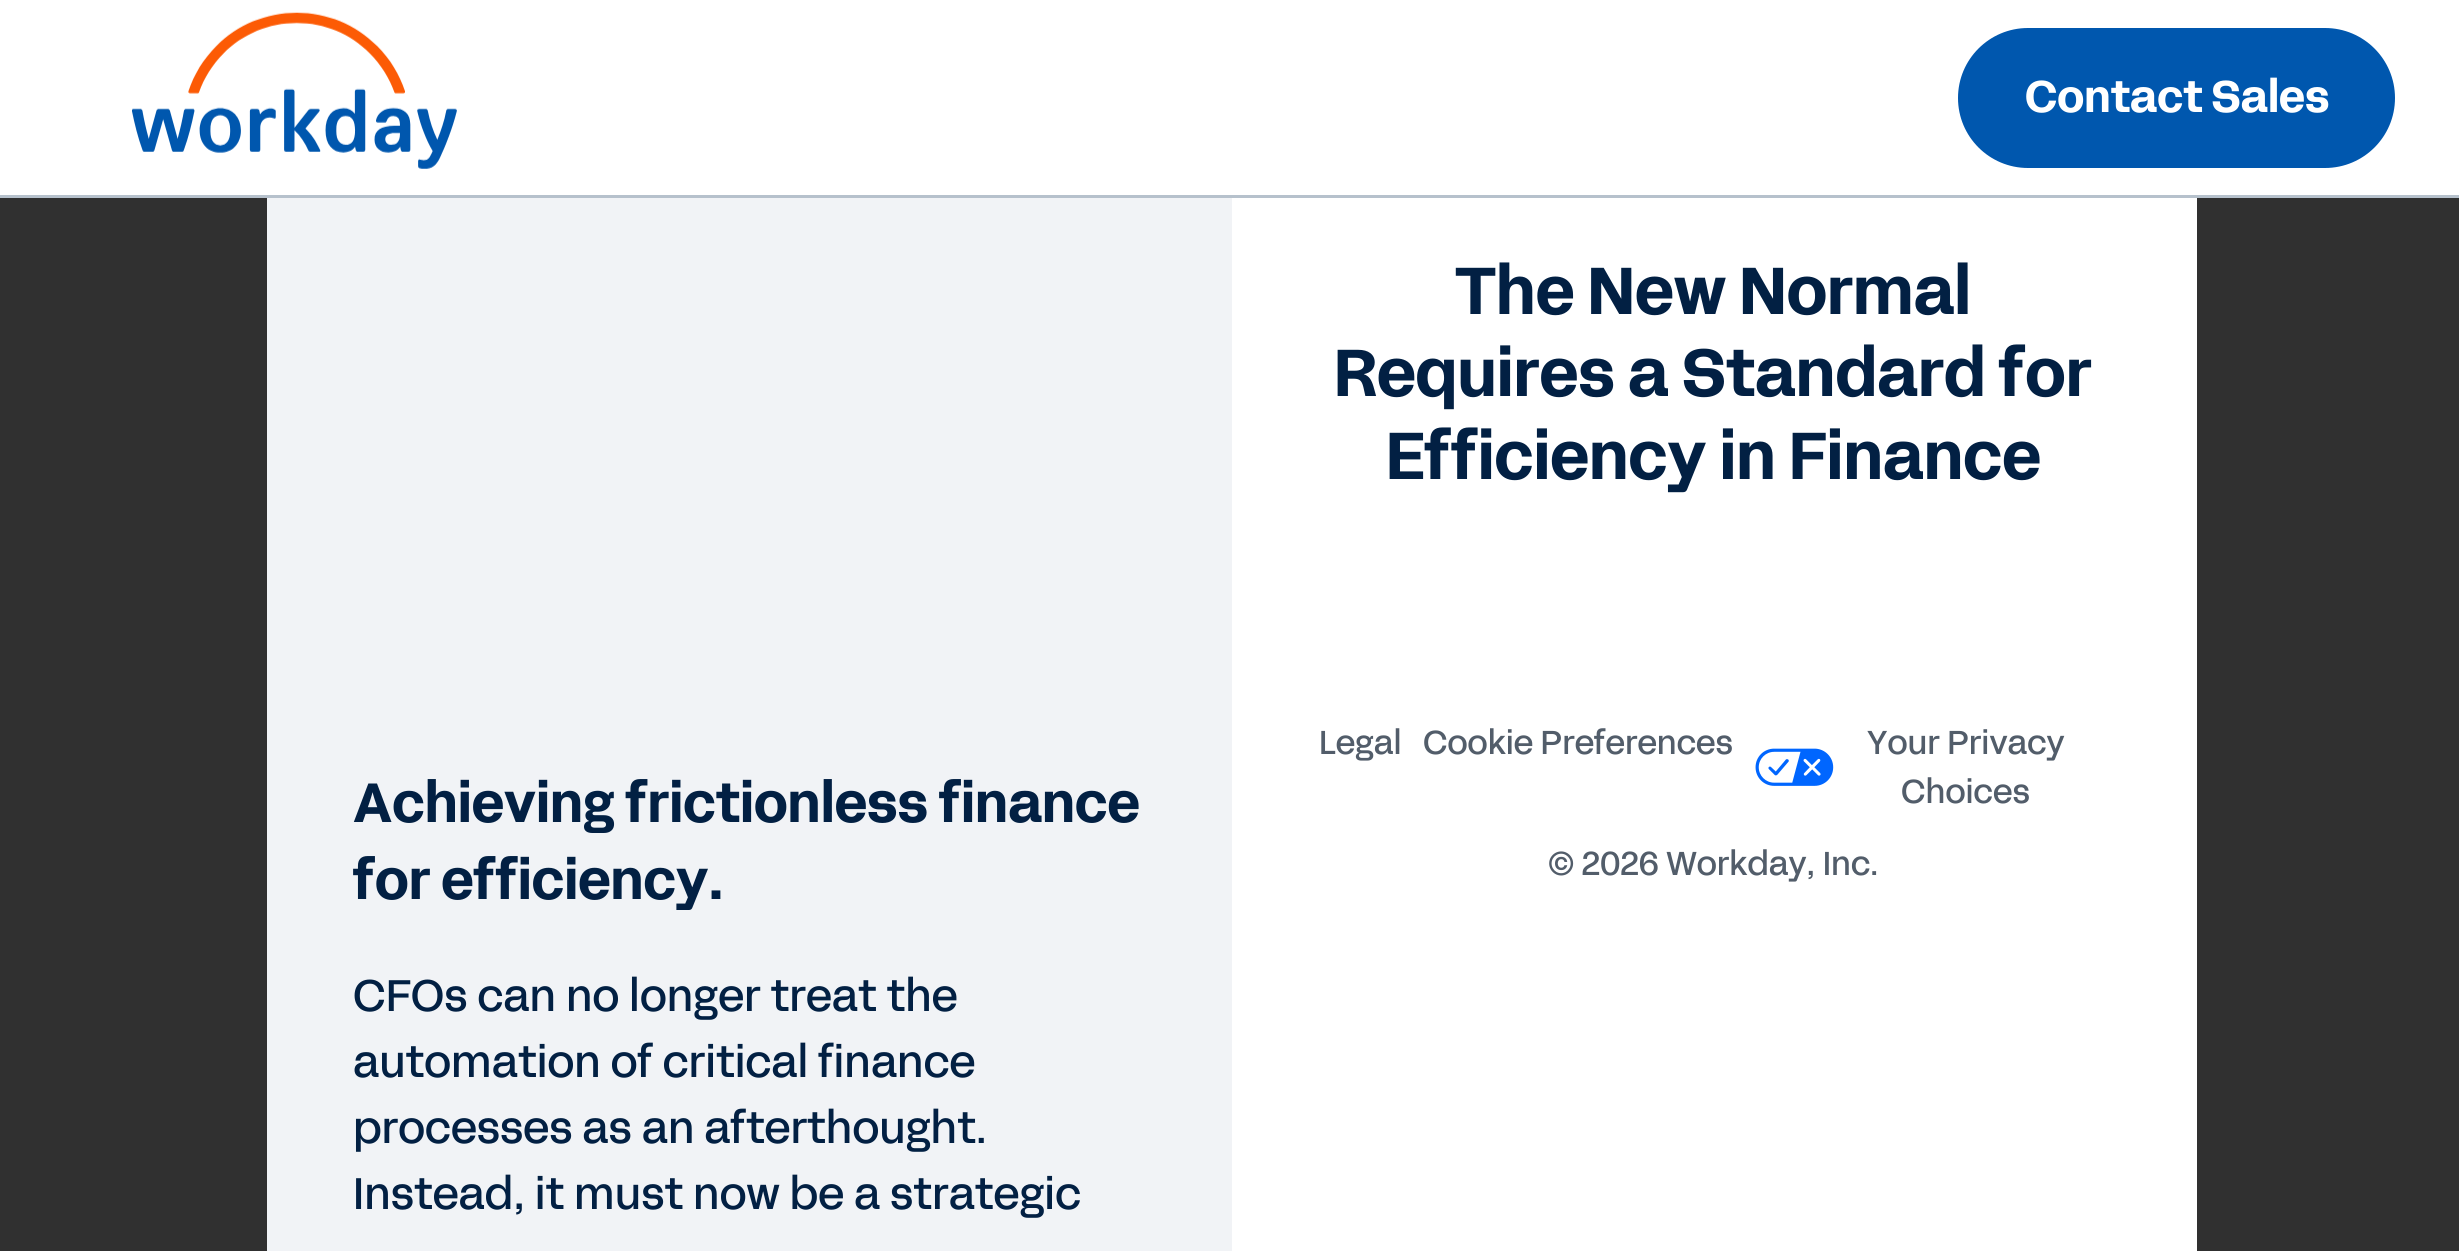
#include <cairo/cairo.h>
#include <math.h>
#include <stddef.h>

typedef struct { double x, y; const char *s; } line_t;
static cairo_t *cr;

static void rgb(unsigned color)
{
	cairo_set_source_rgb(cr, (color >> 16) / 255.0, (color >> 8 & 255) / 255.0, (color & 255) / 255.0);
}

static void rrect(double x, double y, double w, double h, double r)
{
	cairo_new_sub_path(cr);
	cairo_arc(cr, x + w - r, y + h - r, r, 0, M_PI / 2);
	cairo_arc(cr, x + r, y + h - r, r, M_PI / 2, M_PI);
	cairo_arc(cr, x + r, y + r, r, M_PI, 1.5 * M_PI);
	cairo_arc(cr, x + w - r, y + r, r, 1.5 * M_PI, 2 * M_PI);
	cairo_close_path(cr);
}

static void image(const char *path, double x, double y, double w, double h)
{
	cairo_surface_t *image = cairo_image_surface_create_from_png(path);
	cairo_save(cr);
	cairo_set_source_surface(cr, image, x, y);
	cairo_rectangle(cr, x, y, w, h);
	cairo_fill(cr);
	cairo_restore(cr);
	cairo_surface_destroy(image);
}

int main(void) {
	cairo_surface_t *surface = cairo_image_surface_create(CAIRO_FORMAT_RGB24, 2459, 1251);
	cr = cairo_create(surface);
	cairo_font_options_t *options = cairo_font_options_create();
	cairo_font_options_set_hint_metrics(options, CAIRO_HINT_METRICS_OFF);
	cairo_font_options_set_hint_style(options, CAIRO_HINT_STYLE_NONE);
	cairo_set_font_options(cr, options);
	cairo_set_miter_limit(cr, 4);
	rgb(0x303030);
	cairo_paint(cr);
	rgb(0xffffff);
	cairo_rectangle(cr, 0, 0, 2459, 195);
	cairo_fill(cr);
	rgb(0xb6c1cc);
	cairo_rectangle(cr, 0, 195, 2459, 3);
	cairo_fill(cr);
	image("img/1.png", 132, 12, 325, 157);
	rgb(0x0057ae);
	rrect(1958, 28, 437, 140, 70);
	cairo_fill(cr);
	rgb(0xffffff);
	cairo_rectangle(cr, 1232, 198, 965, 1053);
	cairo_fill(cr);
	image("img/2.png", 1755, 748, 79, 38);
	rgb(0xf1f3f6);
	cairo_rectangle(cr, 267, 198, 965, 1053);
	cairo_fill(cr);
	cairo_select_font_face(cr, "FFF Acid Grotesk", CAIRO_FONT_SLANT_NORMAL, CAIRO_FONT_WEIGHT_BOLD);
	cairo_set_font_size(cr, 44);
	rgb(0xffffff);
	cairo_move_to(cr, 2025, 112);
	cairo_show_text(cr, "Contact Sales");
	cairo_set_font_size(cr, 66);
	rgb(0x022043);
	{
		static const line_t items[] = {
			{1455, 314, "The New Normal"},
			{1334, 396, "Requires a Standard for"},
			{1386, 479, "Efficiency in Finance"},
		};
		for (size_t i = 0; i < sizeof items / sizeof *items; i++) {
			cairo_move_to(cr, items[i].x, items[i].y);
			cairo_show_text(cr, items[i].s);
		}
	}
	cairo_select_font_face(cr, "FFF Acid Grotesk", CAIRO_FONT_SLANT_NORMAL, CAIRO_FONT_WEIGHT_NORMAL);
	cairo_set_font_size(cr, 33);
	rgb(0x525d6a);
	{
		static const line_t items[] = {
			{1319, 754, "Legal"},
			{1423, 754, "Cookie Preferences"},
			{1867, 754, "Your Privacy"},
			{1901, 803, "Choices"},
			{1548, 875, "© 2026 Workday, Inc."},
		};
		for (size_t i = 0; i < sizeof items / sizeof *items; i++) {
			cairo_move_to(cr, items[i].x, items[i].y);
			cairo_show_text(cr, items[i].s);
		}
	}
	cairo_select_font_face(cr, "FFF Acid Grotesk", CAIRO_FONT_SLANT_NORMAL, CAIRO_FONT_WEIGHT_BOLD);
	cairo_set_font_size(cr, 55);
	rgb(0x022043);
	cairo_move_to(cr, 353, 822);
	cairo_show_text(cr, "Achieving frictionless finance");
	cairo_move_to(cr, 353, 899);
	cairo_show_text(cr, "for efficiency.");
	cairo_select_font_face(cr, "FFF Acid Grotesk", CAIRO_FONT_SLANT_NORMAL, CAIRO_FONT_WEIGHT_NORMAL);
	cairo_set_font_size(cr, 44);
	{
		static const line_t items[] = {
			{353, 1011, "CFOs can no longer treat the"},
			{353, 1077, "automation of critical finance"},
			{353, 1143, "processes as an afterthought."},
			{353, 1209, "Instead, it must now be a strategic"},
		};
		for (size_t i = 0; i < sizeof items / sizeof *items; i++) {
			cairo_move_to(cr, items[i].x, items[i].y);
			cairo_show_text(cr, items[i].s);
		}
	}
	cairo_surface_write_to_png(surface, "page.png");
	cairo_font_options_destroy(options);
	cairo_destroy(cr);
	cairo_surface_destroy(surface);
	return 0;
}
